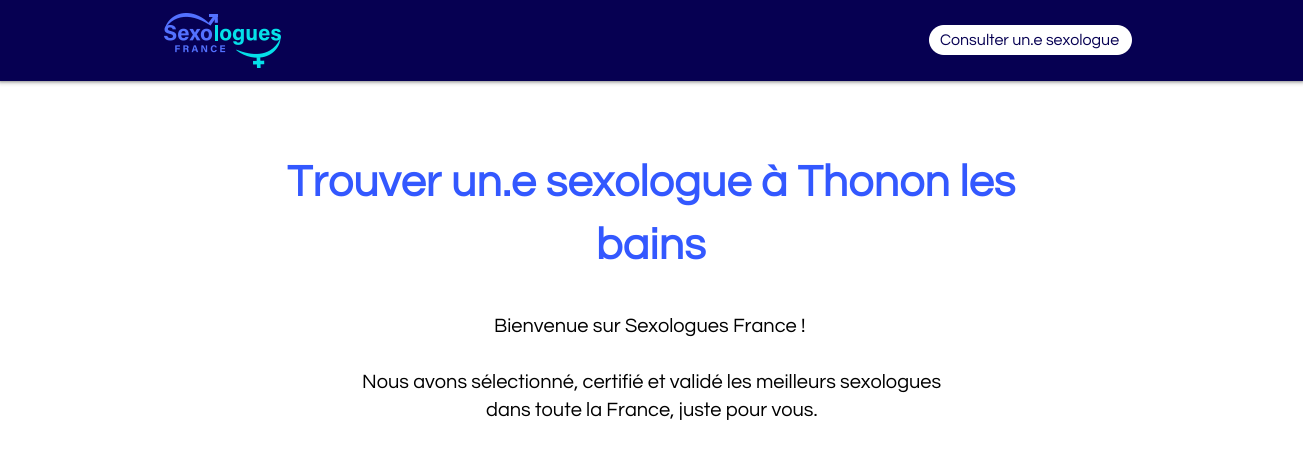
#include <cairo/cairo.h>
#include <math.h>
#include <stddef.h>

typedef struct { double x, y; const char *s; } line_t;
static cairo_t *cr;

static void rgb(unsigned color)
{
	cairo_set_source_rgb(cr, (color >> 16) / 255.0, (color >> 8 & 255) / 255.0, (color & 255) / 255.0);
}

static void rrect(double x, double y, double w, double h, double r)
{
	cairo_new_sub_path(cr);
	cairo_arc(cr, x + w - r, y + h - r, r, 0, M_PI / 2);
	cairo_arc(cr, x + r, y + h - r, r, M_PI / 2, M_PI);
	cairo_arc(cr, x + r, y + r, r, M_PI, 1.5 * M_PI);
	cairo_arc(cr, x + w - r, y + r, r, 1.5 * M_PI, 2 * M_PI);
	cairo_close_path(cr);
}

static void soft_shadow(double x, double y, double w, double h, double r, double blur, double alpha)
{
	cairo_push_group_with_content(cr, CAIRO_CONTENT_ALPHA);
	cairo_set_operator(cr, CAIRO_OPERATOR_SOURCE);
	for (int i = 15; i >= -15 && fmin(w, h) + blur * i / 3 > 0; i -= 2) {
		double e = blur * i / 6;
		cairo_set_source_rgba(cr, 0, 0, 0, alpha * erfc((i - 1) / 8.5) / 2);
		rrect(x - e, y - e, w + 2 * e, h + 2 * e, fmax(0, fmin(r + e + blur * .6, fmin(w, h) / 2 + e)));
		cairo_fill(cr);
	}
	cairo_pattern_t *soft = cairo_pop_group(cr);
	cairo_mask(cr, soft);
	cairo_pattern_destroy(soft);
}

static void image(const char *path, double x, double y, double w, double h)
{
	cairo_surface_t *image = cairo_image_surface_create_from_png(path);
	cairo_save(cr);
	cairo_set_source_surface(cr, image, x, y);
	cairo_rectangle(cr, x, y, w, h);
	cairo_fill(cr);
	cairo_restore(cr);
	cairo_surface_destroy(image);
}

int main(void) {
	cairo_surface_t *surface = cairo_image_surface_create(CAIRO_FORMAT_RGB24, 1303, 457);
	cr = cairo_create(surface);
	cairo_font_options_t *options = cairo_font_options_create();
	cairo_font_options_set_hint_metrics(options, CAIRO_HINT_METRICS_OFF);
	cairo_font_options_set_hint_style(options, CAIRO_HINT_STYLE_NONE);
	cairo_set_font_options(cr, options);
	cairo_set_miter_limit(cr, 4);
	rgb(0xffffff);
	cairo_paint(cr);
	rgb(0x000000);
	soft_shadow(0, 0, 1303, 81, 0, 2.5, 0.7);
	rgb(0x060052);
	cairo_rectangle(cr, 0, 0, 1303, 81);
	cairo_fill(cr);
	image("img/1.png", 164, 13, 117, 55);
	rgb(0xffffff);
	rrect(929, 25, 203, 30, 15);
	cairo_fill(cr);
	cairo_select_font_face(cr, "Questrial", CAIRO_FONT_SLANT_NORMAL, CAIRO_FONT_WEIGHT_NORMAL);
	cairo_set_font_size(cr, 16);
	rgb(0x060052);
	cairo_move_to(cr, 940, 45);
	cairo_show_text(cr, "Consulter un.e sexologue");
	cairo_select_font_face(cr, "Questrial", CAIRO_FONT_SLANT_NORMAL, CAIRO_FONT_WEIGHT_BOLD);
	cairo_set_font_size(cr, 45);
	rgb(0x3358ff);
	cairo_move_to(cr, 287, 196);
	cairo_show_text(cr, "Trouver un.e sexologue à Thonon les");
	cairo_move_to(cr, 596, 259);
	cairo_show_text(cr, "bains");
	cairo_select_font_face(cr, "Questrial", CAIRO_FONT_SLANT_NORMAL, CAIRO_FONT_WEIGHT_NORMAL);
	cairo_set_font_size(cr, 20);
	rgb(0x000000);
	{
		static const line_t items[] = {
			{494, 332, "Bienvenue sur Sexologues France !"},
			{362, 388, "Nous avons sélectionné, certifié et validé les meilleurs sexologues"},
			{486, 416, "dans toute la France, juste pour vous."},
		};
		for (size_t i = 0; i < sizeof items / sizeof *items; i++) {
			cairo_move_to(cr, items[i].x, items[i].y);
			cairo_show_text(cr, items[i].s);
		}
	}
	cairo_surface_write_to_png(surface, "page.png");
	cairo_font_options_destroy(options);
	cairo_destroy(cr);
	cairo_surface_destroy(surface);
	return 0;
}
